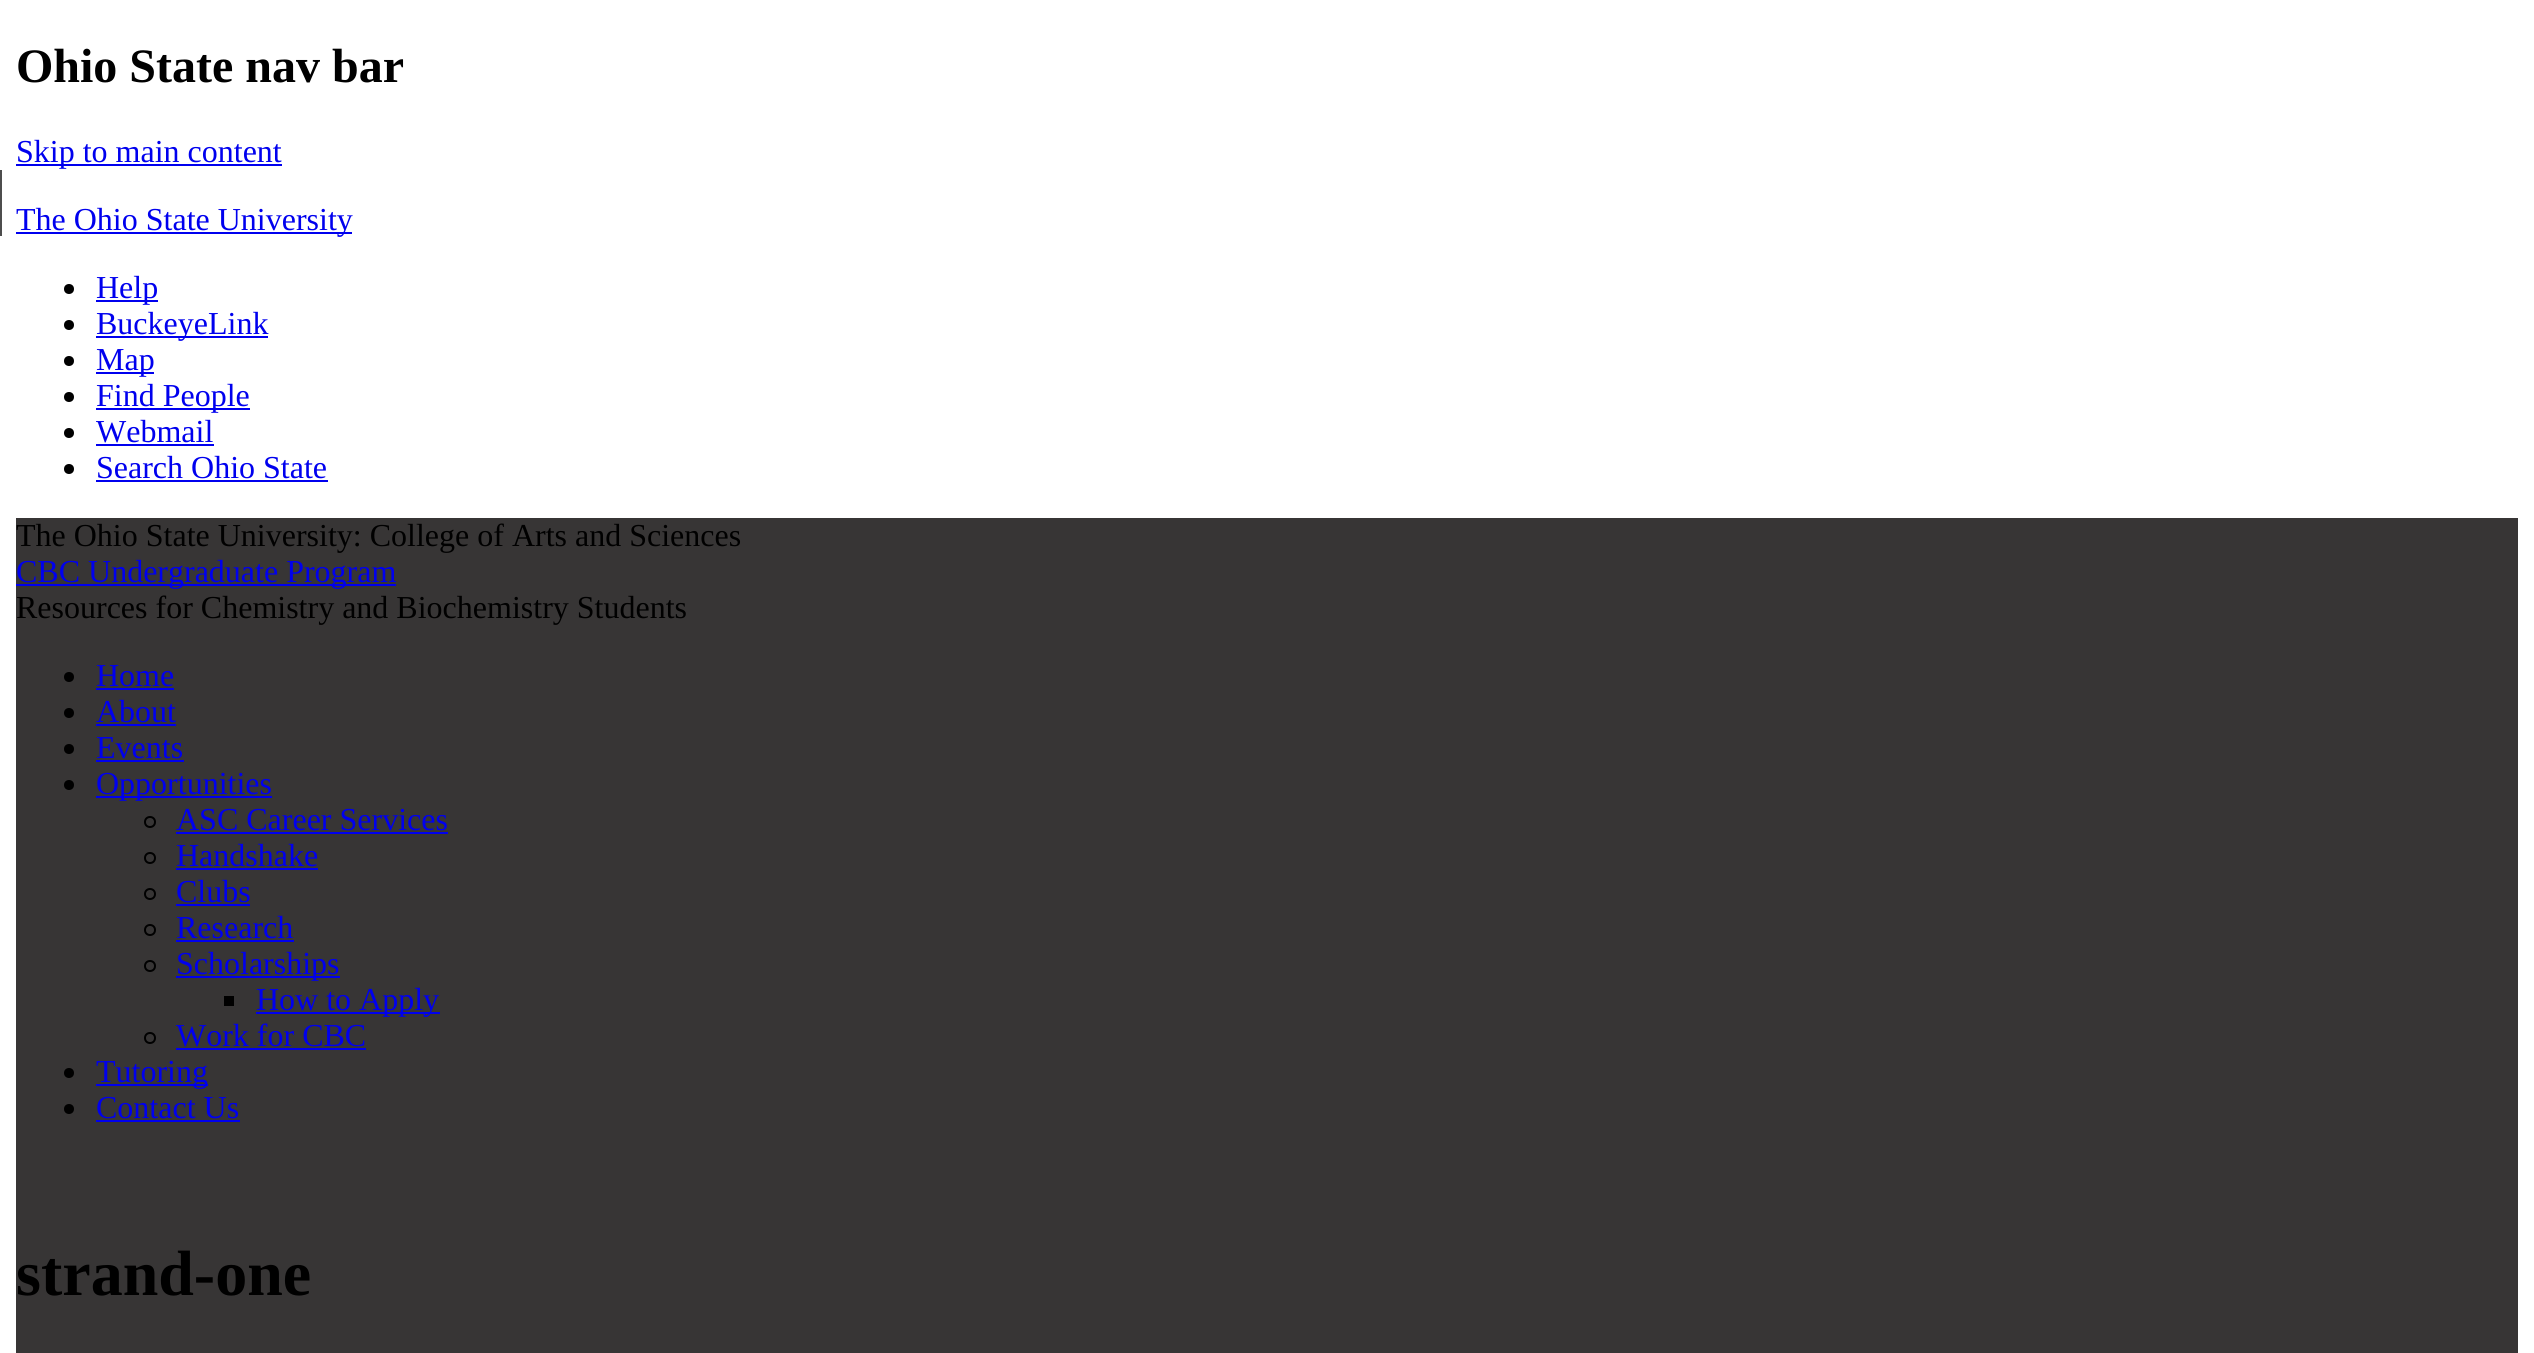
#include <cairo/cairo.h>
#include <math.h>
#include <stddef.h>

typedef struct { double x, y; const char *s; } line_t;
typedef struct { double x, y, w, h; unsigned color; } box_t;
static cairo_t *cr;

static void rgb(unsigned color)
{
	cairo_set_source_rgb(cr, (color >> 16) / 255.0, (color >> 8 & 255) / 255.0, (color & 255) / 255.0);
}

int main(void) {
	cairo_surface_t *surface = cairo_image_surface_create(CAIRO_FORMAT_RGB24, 2534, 1353);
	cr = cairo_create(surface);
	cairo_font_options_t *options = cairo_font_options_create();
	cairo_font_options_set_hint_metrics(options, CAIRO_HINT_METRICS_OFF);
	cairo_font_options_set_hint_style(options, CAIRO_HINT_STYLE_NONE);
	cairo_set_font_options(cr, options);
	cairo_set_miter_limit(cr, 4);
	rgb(0xffffff);
	cairo_paint(cr);
	{
		static const box_t items[] = {
			{16, 164, 266, 2, 0x0000ee},
			{0, 170, 2, 66, 0x4d4d4d},
			{16, 232, 336, 2, 0x0000ee},
		};
		for (size_t i = 0; i < sizeof items / sizeof *items; i++) {
			rgb(items[i].color);
			cairo_rectangle(cr, items[i].x, items[i].y, items[i].w, items[i].h);
			cairo_fill(cr);
		}
	}
	rgb(0x000000);
	cairo_arc(cr, 69, 289, 5, 0, 2 * M_PI);
	cairo_fill(cr);
	rgb(0x0000ee);
	cairo_rectangle(cr, 96, 300, 62, 2);
	cairo_fill(cr);
	rgb(0x000000);
	cairo_arc(cr, 69, 325, 5, 0, 2 * M_PI);
	cairo_fill(cr);
	rgb(0x0000ee);
	cairo_rectangle(cr, 96, 336, 172, 2);
	cairo_fill(cr);
	rgb(0x000000);
	cairo_arc(cr, 69, 361, 5, 0, 2 * M_PI);
	cairo_fill(cr);
	rgb(0x0000ee);
	cairo_rectangle(cr, 96, 372, 58, 2);
	cairo_fill(cr);
	rgb(0x000000);
	cairo_arc(cr, 69, 397, 5, 0, 2 * M_PI);
	cairo_fill(cr);
	rgb(0x0000ee);
	cairo_rectangle(cr, 96, 408, 154, 2);
	cairo_fill(cr);
	rgb(0x000000);
	cairo_arc(cr, 69, 433, 5, 0, 2 * M_PI);
	cairo_fill(cr);
	rgb(0x0000ee);
	cairo_rectangle(cr, 96, 444, 118, 2);
	cairo_fill(cr);
	rgb(0x000000);
	cairo_arc(cr, 69, 469, 5, 0, 2 * M_PI);
	cairo_fill(cr);
	{
		static const box_t items[] = {
			{96, 480, 232, 2, 0x0000ee},
			{16, 518, 2502, 835, 0x373535},
			{16, 584, 380, 2, 0x0000ee},
		};
		for (size_t i = 0; i < sizeof items / sizeof *items; i++) {
			rgb(items[i].color);
			cairo_rectangle(cr, items[i].x, items[i].y, items[i].w, items[i].h);
			cairo_fill(cr);
		}
	}
	rgb(0x000000);
	cairo_arc(cr, 69, 677, 5, 0, 2 * M_PI);
	cairo_fill(cr);
	rgb(0x0000ee);
	cairo_rectangle(cr, 96, 688, 78, 2);
	cairo_fill(cr);
	rgb(0x000000);
	cairo_arc(cr, 69, 713, 5, 0, 2 * M_PI);
	cairo_fill(cr);
	rgb(0x0000ee);
	cairo_rectangle(cr, 96, 724, 80, 2);
	cairo_fill(cr);
	rgb(0x000000);
	cairo_arc(cr, 69, 749, 5, 0, 2 * M_PI);
	cairo_fill(cr);
	rgb(0x0000ee);
	cairo_rectangle(cr, 96, 760, 88, 2);
	cairo_fill(cr);
	rgb(0x000000);
	cairo_arc(cr, 69, 785, 5, 0, 2 * M_PI);
	cairo_fill(cr);
	rgb(0x0000ee);
	cairo_rectangle(cr, 96, 796, 176, 2);
	cairo_fill(cr);
	cairo_arc(cr, 150, 822, 5, 0, 2 * M_PI);
	rgb(0x000000);
	cairo_stroke(cr);
	rgb(0x0000ee);
	cairo_rectangle(cr, 176, 832, 272, 2);
	cairo_fill(cr);
	cairo_arc(cr, 150, 858, 5, 0, 2 * M_PI);
	rgb(0x000000);
	cairo_stroke(cr);
	rgb(0x0000ee);
	cairo_rectangle(cr, 176, 868, 142, 2);
	cairo_fill(cr);
	cairo_arc(cr, 150, 894, 5, 0, 2 * M_PI);
	rgb(0x000000);
	cairo_stroke(cr);
	rgb(0x0000ee);
	cairo_rectangle(cr, 176, 904, 74, 2);
	cairo_fill(cr);
	cairo_arc(cr, 150, 930, 5, 0, 2 * M_PI);
	rgb(0x000000);
	cairo_stroke(cr);
	rgb(0x0000ee);
	cairo_rectangle(cr, 176, 940, 118, 2);
	cairo_fill(cr);
	cairo_arc(cr, 150, 966, 5, 0, 2 * M_PI);
	rgb(0x000000);
	cairo_stroke(cr);
	{
		static const box_t items[] = {
			{176, 976, 164, 2, 0x0000ee},
			{224, 996, 10, 10, 0x000000},
			{256, 1012, 184, 2, 0x0000ee},
		};
		for (size_t i = 0; i < sizeof items / sizeof *items; i++) {
			rgb(items[i].color);
			cairo_rectangle(cr, items[i].x, items[i].y, items[i].w, items[i].h);
			cairo_fill(cr);
		}
	}
	cairo_arc(cr, 150, 1038, 5, 0, 2 * M_PI);
	rgb(0x000000);
	cairo_stroke(cr);
	rgb(0x0000ee);
	cairo_rectangle(cr, 176, 1048, 190, 2);
	cairo_fill(cr);
	rgb(0x000000);
	cairo_arc(cr, 69, 1073, 5, 0, 2 * M_PI);
	cairo_fill(cr);
	rgb(0x0000ee);
	cairo_rectangle(cr, 96, 1084, 112, 2);
	cairo_fill(cr);
	rgb(0x000000);
	cairo_arc(cr, 69, 1109, 5, 0, 2 * M_PI);
	cairo_fill(cr);
	rgb(0x0000ee);
	cairo_rectangle(cr, 96, 1120, 144, 2);
	cairo_fill(cr);
	cairo_select_font_face(cr, "Liberation Serif", CAIRO_FONT_SLANT_NORMAL, CAIRO_FONT_WEIGHT_BOLD);
	cairo_set_font_size(cr, 48);
	rgb(0x000000);
	cairo_move_to(cr, 16, 82);
	cairo_show_text(cr, "Ohio State nav bar");
	cairo_select_font_face(cr, "Liberation Serif", CAIRO_FONT_SLANT_NORMAL, CAIRO_FONT_WEIGHT_NORMAL);
	cairo_set_font_size(cr, 32);
	rgb(0x0000ee);
	{
		static const line_t items[] = {
			{16, 162, "Skip to main content"},
			{16, 230, "The Ohio State University"},
			{96, 298, "Help"},
			{96, 334, "BuckeyeLink"},
			{96, 370, "Map"},
			{96, 406, "Find People"},
			{96, 442, "Webmail"},
			{96, 478, "Search Ohio State"},
		};
		for (size_t i = 0; i < sizeof items / sizeof *items; i++) {
			cairo_move_to(cr, items[i].x, items[i].y);
			cairo_show_text(cr, items[i].s);
		}
	}
	rgb(0x000000);
	cairo_move_to(cr, 16, 546);
	cairo_show_text(cr, "The Ohio State University: College of Arts and Sciences");
	rgb(0x0000ee);
	cairo_move_to(cr, 16, 582);
	cairo_show_text(cr, "CBC Undergraduate Program");
	rgb(0x000000);
	cairo_move_to(cr, 16, 618);
	cairo_show_text(cr, "Resources for Chemistry and Biochemistry Students");
	rgb(0x0000ee);
	{
		static const line_t items[] = {
			{96, 686, "Home"},
			{96, 722, "About"},
			{96, 758, "Events"},
			{96, 794, "Opportunities"},
			{176, 830, "ASC Career Services"},
			{176, 866, "Handshake"},
			{176, 902, "Clubs"},
			{176, 938, "Research"},
			{176, 974, "Scholarships"},
			{256, 1010, "How to Apply"},
			{176, 1046, "Work for CBC"},
			{96, 1082, "Tutoring"},
			{96, 1118, "Contact Us"},
		};
		for (size_t i = 0; i < sizeof items / sizeof *items; i++) {
			cairo_move_to(cr, items[i].x, items[i].y);
			cairo_show_text(cr, items[i].s);
		}
	}
	cairo_select_font_face(cr, "Liberation Serif", CAIRO_FONT_SLANT_NORMAL, CAIRO_FONT_WEIGHT_BOLD);
	cairo_set_font_size(cr, 64);
	rgb(0x000000);
	cairo_move_to(cr, 16, 1295);
	cairo_show_text(cr, "strand-one");
	cairo_surface_write_to_png(surface, "page.png");
	cairo_font_options_destroy(options);
	cairo_destroy(cr);
	cairo_surface_destroy(surface);
	return 0;
}
